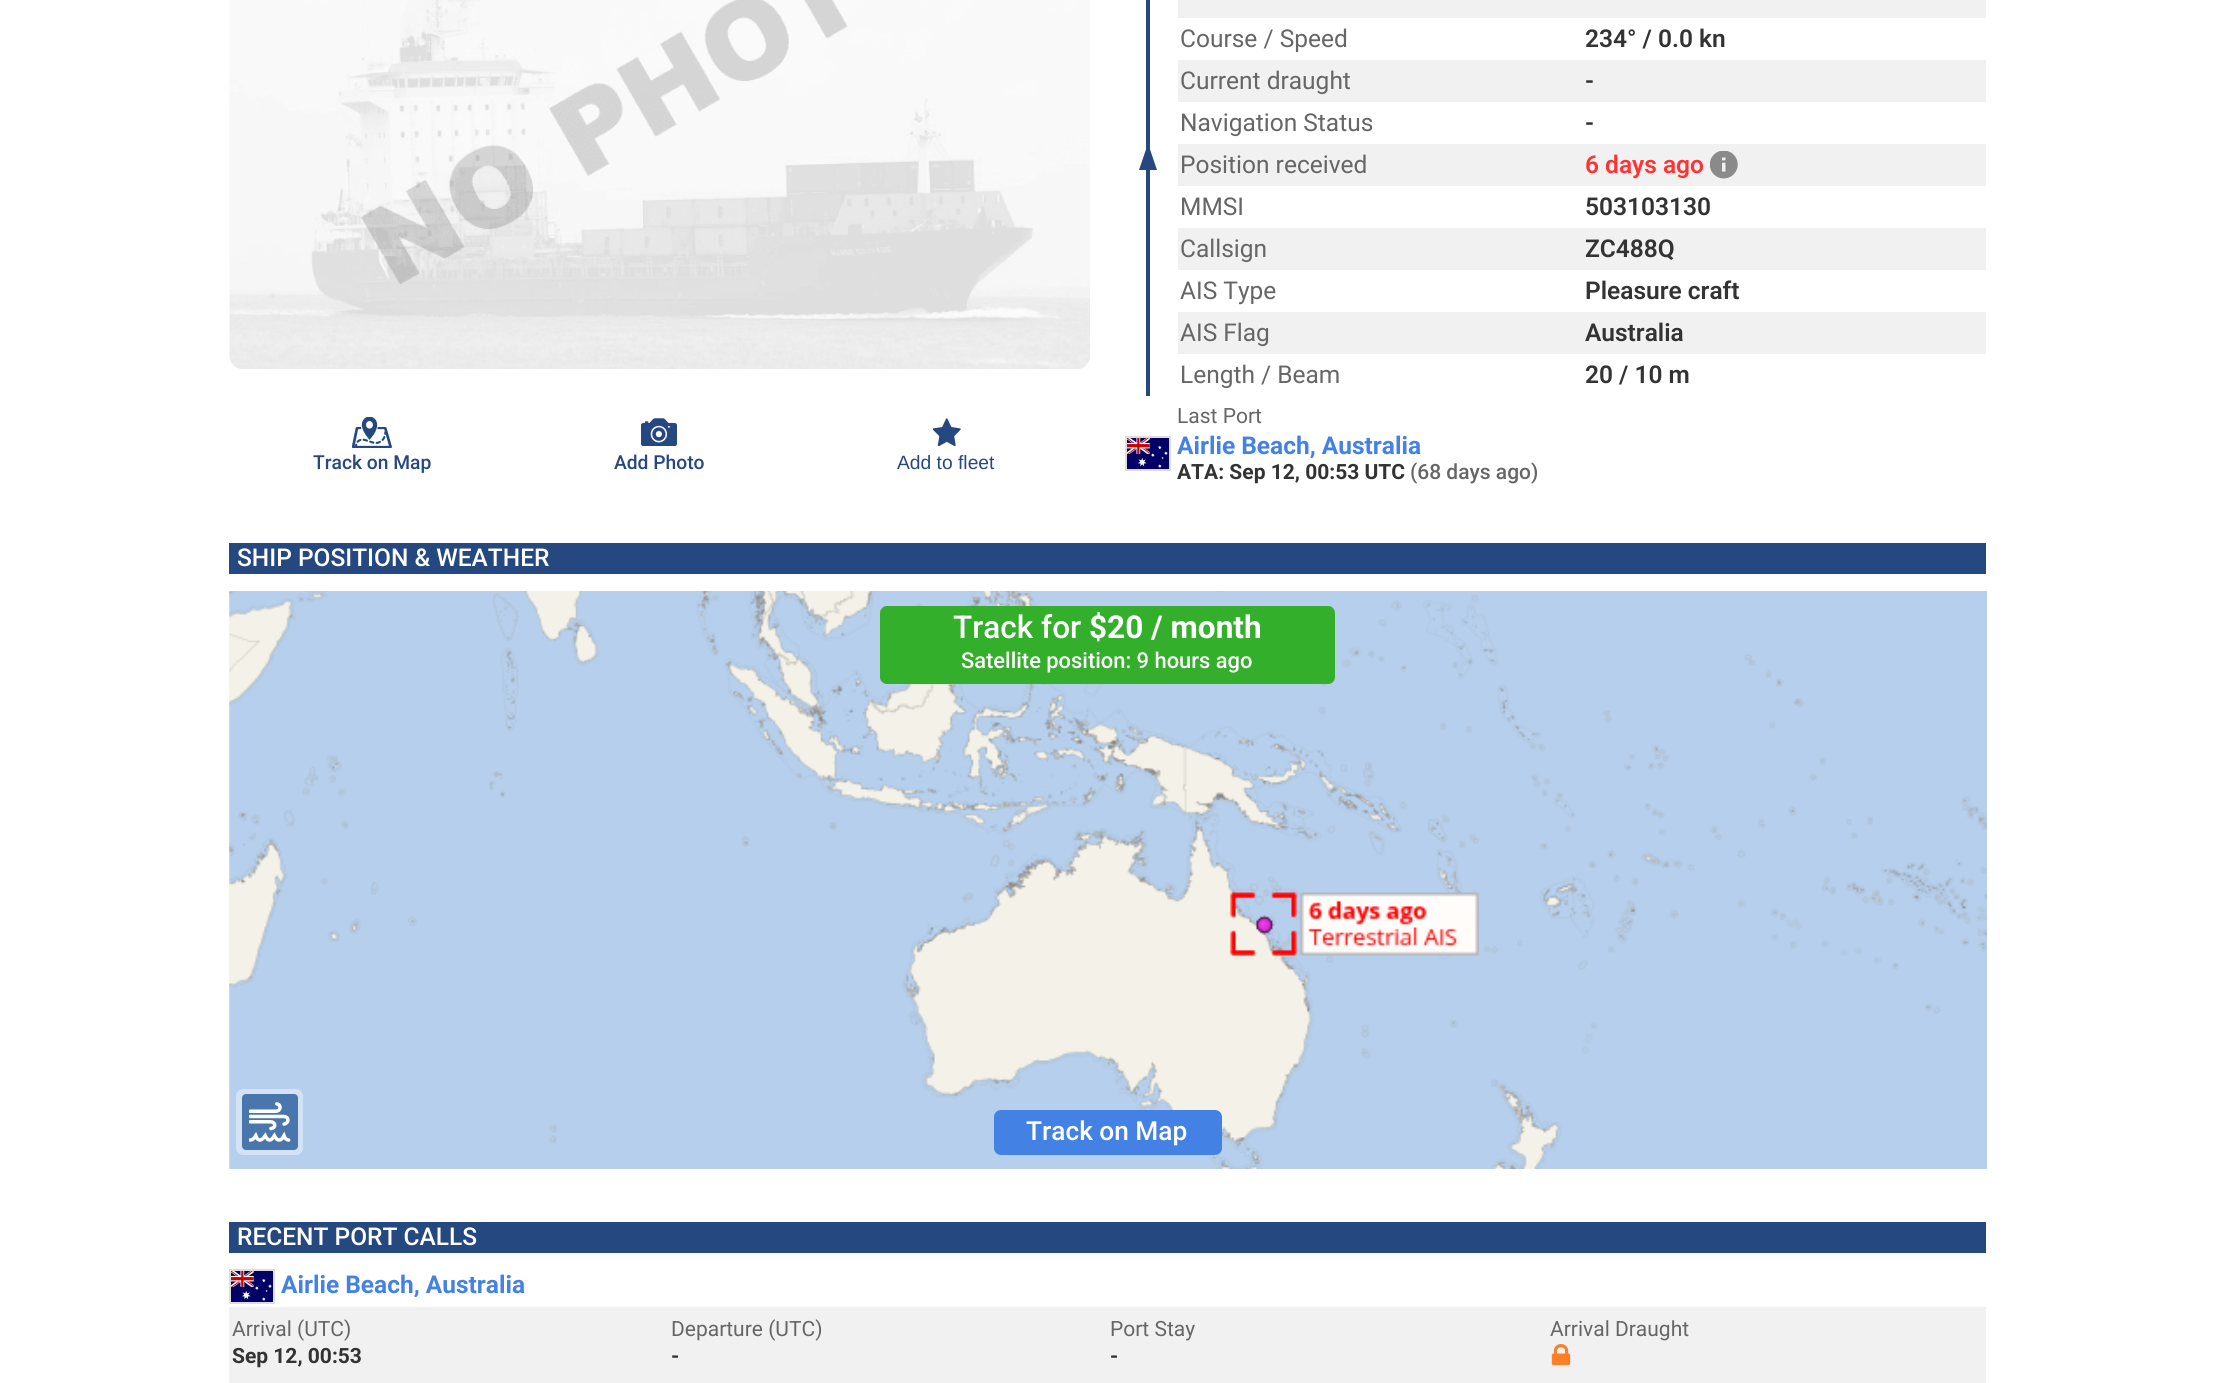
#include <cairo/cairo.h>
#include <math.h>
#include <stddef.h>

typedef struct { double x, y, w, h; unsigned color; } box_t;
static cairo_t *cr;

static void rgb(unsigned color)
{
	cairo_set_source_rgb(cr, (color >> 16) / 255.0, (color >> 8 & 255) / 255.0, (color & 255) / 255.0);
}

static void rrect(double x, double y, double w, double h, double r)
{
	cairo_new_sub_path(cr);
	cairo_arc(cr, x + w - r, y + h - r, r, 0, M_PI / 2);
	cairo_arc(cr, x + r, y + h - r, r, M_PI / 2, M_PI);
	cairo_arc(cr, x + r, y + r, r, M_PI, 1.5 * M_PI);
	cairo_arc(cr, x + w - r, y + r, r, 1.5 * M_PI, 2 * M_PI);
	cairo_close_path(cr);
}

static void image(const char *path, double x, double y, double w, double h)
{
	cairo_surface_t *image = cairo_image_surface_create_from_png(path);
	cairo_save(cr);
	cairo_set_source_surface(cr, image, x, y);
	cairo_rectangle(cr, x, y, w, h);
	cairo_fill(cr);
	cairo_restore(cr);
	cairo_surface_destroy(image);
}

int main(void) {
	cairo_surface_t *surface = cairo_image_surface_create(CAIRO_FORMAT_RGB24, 2213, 1383);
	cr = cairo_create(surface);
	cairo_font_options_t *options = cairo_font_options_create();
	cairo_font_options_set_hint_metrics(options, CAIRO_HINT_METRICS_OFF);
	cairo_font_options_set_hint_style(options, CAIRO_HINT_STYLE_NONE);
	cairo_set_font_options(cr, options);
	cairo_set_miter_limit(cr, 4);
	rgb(0xffffff);
	cairo_paint(cr);
	image("img/1.png", 229, 0, 861, 369);
	image("img/2.png", 352, 417, 40, 31);
	image("img/3.png", 641, 418, 36, 28);
	image("img/4.png", 933, 418, 28, 28);
	rgb(0x254881);
	cairo_rectangle(cr, 1146, 0, 4, 150);
	cairo_fill(cr);
	cairo_rectangle(cr, 1146, 165, 4, 231);
	cairo_fill(cr);
	cairo_new_path(cr);
	cairo_move_to(cr, 1157, 170);
	cairo_line_to(cr, 1139, 170);
	cairo_line_to(cr, 1148, 143.5);
	cairo_close_path(cr);
	cairo_fill(cr);
	{
		static const box_t items[] = {
			{1178, 0, 808, 18, 0xf1f1f1},
			{1178, 60, 808, 42, 0xf1f1f1},
			{1178, 144, 808, 42, 0xf1f1f1},
		};
		for (size_t i = 0; i < sizeof items / sizeof *items; i++) {
			rgb(items[i].color);
			cairo_rectangle(cr, items[i].x, items[i].y, items[i].w, items[i].h);
			cairo_fill(cr);
		}
	}
	image("img/5.png", 1710, 151, 28, 28);
	cairo_rectangle(cr, 1178, 228, 808, 42);
	cairo_fill(cr);
	cairo_rectangle(cr, 1178, 312, 808, 42);
	cairo_fill(cr);
	cairo_rectangle(cr, 1126, 437, 44, 33);
	rgb(0xdddddd);
	cairo_stroke(cr);
	image("img/6.png", 1127, 438, 42, 31);
	rgb(0x254881);
	cairo_rectangle(cr, 229, 543, 1757, 31);
	cairo_fill(cr);
	image("img/7.png", 229, 591, 1758, 578);
	rgb(0xd3e2f4);
	rrect(236, 1089, 67, 66, 7);
	cairo_fill(cr);
	rgb(0x4a76ae);
	rrect(242, 1094, 56, 56, 4);
	cairo_fill(cr);
	image("img/8.png", 249, 1102, 42, 40);
	rgb(0x33af2c);
	rrect(880, 606, 455, 78, 7);
	cairo_fill(cr);
	rgb(0x4481e4);
	rrect(994, 1110, 228, 45, 7);
	cairo_fill(cr);
	rgb(0x254881);
	cairo_rectangle(cr, 229, 1222, 1757, 31);
	cairo_fill(cr);
	cairo_rectangle(cr, 230, 1270, 44, 33);
	rgb(0xdddddd);
	cairo_stroke(cr);
	image("img/6.png", 231, 1271, 42, 31);
	rgb(0xf1f1f1);
	cairo_rectangle(cr, 229, 1307, 1757, 76);
	cairo_fill(cr);
	image("img/9.png", 1551, 1344, 20, 21);
	cairo_select_font_face(cr, "Roboto Medium", CAIRO_FONT_SLANT_NORMAL, CAIRO_FONT_WEIGHT_NORMAL);
	cairo_set_font_size(cr, 19.25);
	rgb(0x254881);
	cairo_move_to(cr, 313, 469);
	cairo_show_text(cr, "Track on Map");
	cairo_move_to(cr, 614, 469);
	cairo_show_text(cr, "Add Photo");
	cairo_select_font_face(cr, "Liberation Sans", CAIRO_FONT_SLANT_NORMAL, CAIRO_FONT_WEIGHT_NORMAL);
	cairo_move_to(cr, 897, 469);
	cairo_show_text(cr, "Add to fleet");
	cairo_select_font_face(cr, "Roboto", CAIRO_FONT_SLANT_NORMAL, CAIRO_FONT_WEIGHT_NORMAL);
	cairo_set_font_size(cr, 24.5);
	rgb(0x666666);
	cairo_move_to(cr, 1180, 47);
	cairo_show_text(cr, "Course / Speed");
	cairo_select_font_face(cr, "Roboto SemiBold", CAIRO_FONT_SLANT_NORMAL, CAIRO_FONT_WEIGHT_NORMAL);
	rgb(0x333333);
	cairo_move_to(cr, 1585, 47);
	cairo_show_text(cr, "234° / 0.0 kn");
	cairo_select_font_face(cr, "Roboto", CAIRO_FONT_SLANT_NORMAL, CAIRO_FONT_WEIGHT_NORMAL);
	rgb(0x666666);
	cairo_move_to(cr, 1180, 89);
	cairo_show_text(cr, "Current draught");
	cairo_select_font_face(cr, "Roboto SemiBold", CAIRO_FONT_SLANT_NORMAL, CAIRO_FONT_WEIGHT_NORMAL);
	rgb(0x333333);
	cairo_move_to(cr, 1585, 89);
	cairo_show_text(cr, "-");
	cairo_select_font_face(cr, "Roboto", CAIRO_FONT_SLANT_NORMAL, CAIRO_FONT_WEIGHT_NORMAL);
	rgb(0x666666);
	cairo_move_to(cr, 1180, 131);
	cairo_show_text(cr, "Navigation Status");
	cairo_select_font_face(cr, "Roboto SemiBold", CAIRO_FONT_SLANT_NORMAL, CAIRO_FONT_WEIGHT_NORMAL);
	rgb(0x333333);
	cairo_move_to(cr, 1585, 131);
	cairo_show_text(cr, "-");
	cairo_select_font_face(cr, "Roboto", CAIRO_FONT_SLANT_NORMAL, CAIRO_FONT_WEIGHT_NORMAL);
	rgb(0x666666);
	cairo_move_to(cr, 1180, 173);
	cairo_show_text(cr, "Position received");
	cairo_select_font_face(cr, "Roboto SemiBold", CAIRO_FONT_SLANT_NORMAL, CAIRO_FONT_WEIGHT_NORMAL);
	rgb(0xff3333);
	cairo_move_to(cr, 1585, 173);
	cairo_show_text(cr, "6 days ago");
	cairo_select_font_face(cr, "Roboto", CAIRO_FONT_SLANT_NORMAL, CAIRO_FONT_WEIGHT_NORMAL);
	rgb(0x666666);
	cairo_move_to(cr, 1180, 215);
	cairo_show_text(cr, "MMSI");
	cairo_select_font_face(cr, "Roboto SemiBold", CAIRO_FONT_SLANT_NORMAL, CAIRO_FONT_WEIGHT_NORMAL);
	rgb(0x333333);
	cairo_move_to(cr, 1585, 215);
	cairo_show_text(cr, "503103130");
	cairo_select_font_face(cr, "Roboto", CAIRO_FONT_SLANT_NORMAL, CAIRO_FONT_WEIGHT_NORMAL);
	rgb(0x666666);
	cairo_move_to(cr, 1180, 257);
	cairo_show_text(cr, "Callsign");
	cairo_select_font_face(cr, "Roboto SemiBold", CAIRO_FONT_SLANT_NORMAL, CAIRO_FONT_WEIGHT_NORMAL);
	rgb(0x333333);
	cairo_move_to(cr, 1585, 257);
	cairo_show_text(cr, "ZC488Q");
	cairo_select_font_face(cr, "Roboto", CAIRO_FONT_SLANT_NORMAL, CAIRO_FONT_WEIGHT_NORMAL);
	rgb(0x666666);
	cairo_move_to(cr, 1180, 299);
	cairo_show_text(cr, "AIS Type");
	cairo_select_font_face(cr, "Roboto SemiBold", CAIRO_FONT_SLANT_NORMAL, CAIRO_FONT_WEIGHT_NORMAL);
	rgb(0x333333);
	cairo_move_to(cr, 1585, 299);
	cairo_show_text(cr, "Pleasure craft");
	cairo_select_font_face(cr, "Roboto", CAIRO_FONT_SLANT_NORMAL, CAIRO_FONT_WEIGHT_NORMAL);
	rgb(0x666666);
	cairo_move_to(cr, 1180, 341);
	cairo_show_text(cr, "AIS Flag");
	cairo_select_font_face(cr, "Roboto SemiBold", CAIRO_FONT_SLANT_NORMAL, CAIRO_FONT_WEIGHT_NORMAL);
	rgb(0x333333);
	cairo_move_to(cr, 1585, 341);
	cairo_show_text(cr, "Australia");
	cairo_select_font_face(cr, "Roboto", CAIRO_FONT_SLANT_NORMAL, CAIRO_FONT_WEIGHT_NORMAL);
	rgb(0x666666);
	cairo_move_to(cr, 1180, 383);
	cairo_show_text(cr, "Length / Beam");
	cairo_select_font_face(cr, "Roboto SemiBold", CAIRO_FONT_SLANT_NORMAL, CAIRO_FONT_WEIGHT_NORMAL);
	rgb(0x333333);
	cairo_move_to(cr, 1585, 383);
	cairo_show_text(cr, "20 / 10 m");
	cairo_select_font_face(cr, "Roboto", CAIRO_FONT_SLANT_NORMAL, CAIRO_FONT_WEIGHT_NORMAL);
	cairo_set_font_size(cr, 21);
	rgb(0x666666);
	cairo_move_to(cr, 1177, 423);
	cairo_show_text(cr, "Last Port");
	cairo_select_font_face(cr, "Roboto", CAIRO_FONT_SLANT_NORMAL, CAIRO_FONT_WEIGHT_BOLD);
	cairo_set_font_size(cr, 24.5);
	rgb(0x4481e4);
	cairo_move_to(cr, 1177, 454);
	cairo_show_text(cr, "Airlie Beach, Australia");
	cairo_set_font_size(cr, 21);
	rgb(0x333333);
	cairo_move_to(cr, 1177, 479);
	cairo_show_text(cr, "ATA: Sep 12, 00:53 UTC");
	cairo_select_font_face(cr, "Roboto Medium", CAIRO_FONT_SLANT_NORMAL, CAIRO_FONT_WEIGHT_NORMAL);
	rgb(0x666666);
	cairo_move_to(cr, 1410, 479);
	cairo_show_text(cr, "(68 days ago)");
	cairo_set_font_size(cr, 24.5);
	rgb(0xffffff);
	cairo_move_to(cr, 237, 566);
	cairo_show_text(cr, "SHIP POSITION & WEATHER");
	cairo_set_font_size(cr, 31.5);
	cairo_move_to(cr, 953, 638);
	cairo_show_text(cr, "Track for");
	cairo_select_font_face(cr, "Roboto", CAIRO_FONT_SLANT_NORMAL, CAIRO_FONT_WEIGHT_BOLD);
	cairo_move_to(cr, 1089, 638);
	cairo_show_text(cr, "$20 / month");
	cairo_select_font_face(cr, "Roboto Medium", CAIRO_FONT_SLANT_NORMAL, CAIRO_FONT_WEIGHT_NORMAL);
	cairo_set_font_size(cr, 21.9);
	cairo_move_to(cr, 961, 668);
	cairo_show_text(cr, "Satellite position: 9 hours ago");
	cairo_set_font_size(cr, 26.25);
	cairo_move_to(cr, 1026, 1140);
	cairo_show_text(cr, "Track on Map");
	cairo_set_font_size(cr, 24.5);
	cairo_move_to(cr, 237, 1245);
	cairo_show_text(cr, "RECENT PORT CALLS");
	cairo_select_font_face(cr, "Roboto", CAIRO_FONT_SLANT_NORMAL, CAIRO_FONT_WEIGHT_BOLD);
	rgb(0x4481e4);
	cairo_move_to(cr, 281, 1293);
	cairo_show_text(cr, "Airlie Beach, Australia");
	cairo_select_font_face(cr, "Roboto", CAIRO_FONT_SLANT_NORMAL, CAIRO_FONT_WEIGHT_NORMAL);
	cairo_set_font_size(cr, 21);
	rgb(0x666666);
	cairo_move_to(cr, 232, 1336);
	cairo_show_text(cr, "Arrival (UTC)");
	cairo_select_font_face(cr, "Roboto", CAIRO_FONT_SLANT_NORMAL, CAIRO_FONT_WEIGHT_BOLD);
	rgb(0x333333);
	cairo_move_to(cr, 232, 1363);
	cairo_show_text(cr, "Sep 12, 00:53");
	cairo_select_font_face(cr, "Roboto", CAIRO_FONT_SLANT_NORMAL, CAIRO_FONT_WEIGHT_NORMAL);
	rgb(0x666666);
	cairo_move_to(cr, 671, 1336);
	cairo_show_text(cr, "Departure (UTC)");
	cairo_select_font_face(cr, "Roboto", CAIRO_FONT_SLANT_NORMAL, CAIRO_FONT_WEIGHT_BOLD);
	rgb(0x333333);
	cairo_move_to(cr, 671, 1363);
	cairo_show_text(cr, "-");
	cairo_select_font_face(cr, "Roboto", CAIRO_FONT_SLANT_NORMAL, CAIRO_FONT_WEIGHT_NORMAL);
	rgb(0x666666);
	cairo_move_to(cr, 1110, 1336);
	cairo_show_text(cr, "Port Stay");
	cairo_select_font_face(cr, "Roboto", CAIRO_FONT_SLANT_NORMAL, CAIRO_FONT_WEIGHT_BOLD);
	rgb(0x333333);
	cairo_move_to(cr, 1110, 1363);
	cairo_show_text(cr, "-");
	cairo_select_font_face(cr, "Roboto", CAIRO_FONT_SLANT_NORMAL, CAIRO_FONT_WEIGHT_NORMAL);
	rgb(0x666666);
	cairo_move_to(cr, 1550, 1336);
	cairo_show_text(cr, "Arrival Draught");
	cairo_surface_write_to_png(surface, "page.png");
	cairo_font_options_destroy(options);
	cairo_destroy(cr);
	cairo_surface_destroy(surface);
	return 0;
}
